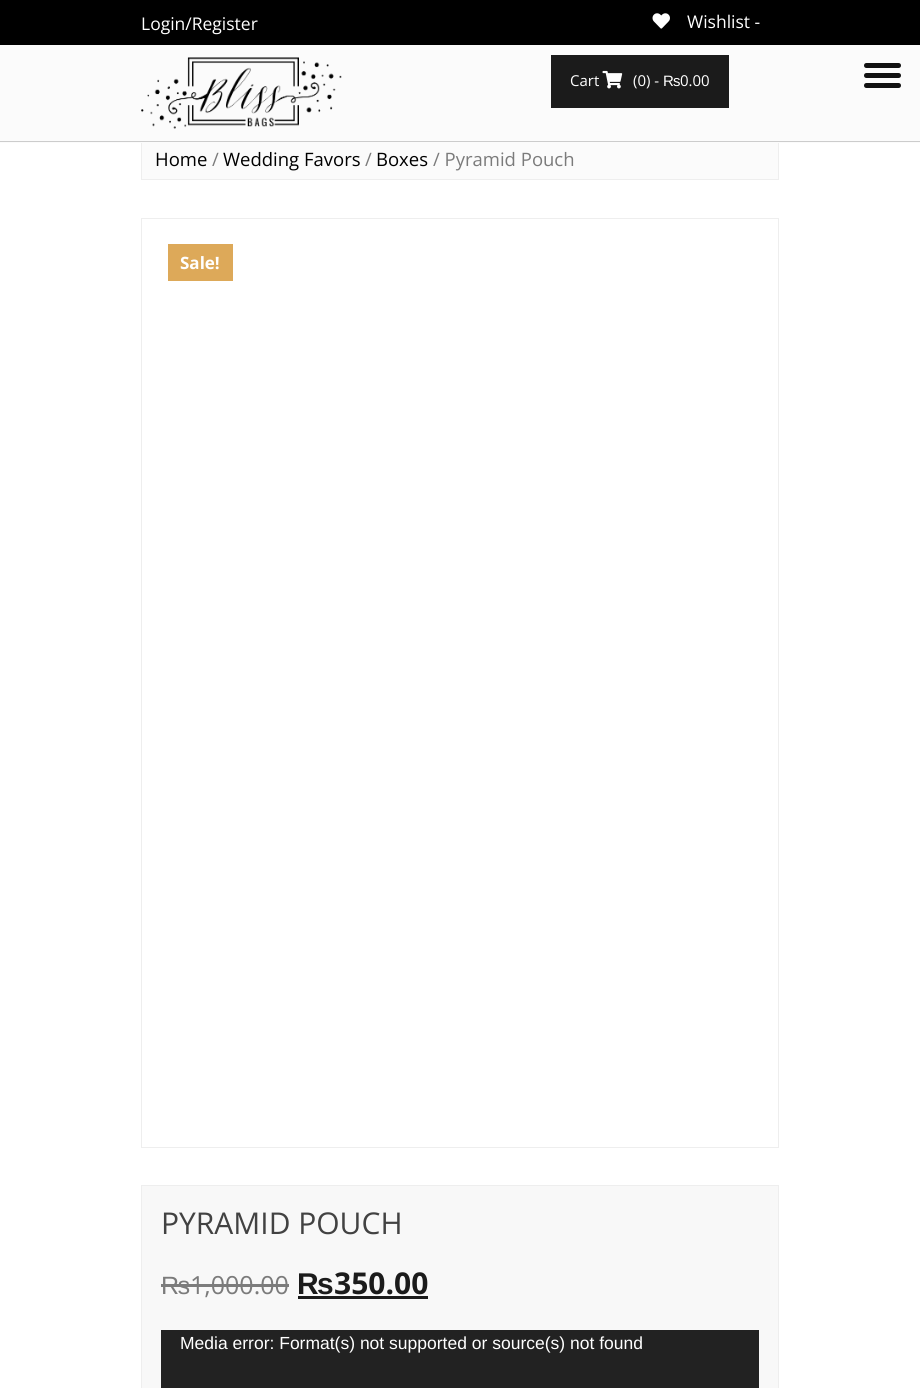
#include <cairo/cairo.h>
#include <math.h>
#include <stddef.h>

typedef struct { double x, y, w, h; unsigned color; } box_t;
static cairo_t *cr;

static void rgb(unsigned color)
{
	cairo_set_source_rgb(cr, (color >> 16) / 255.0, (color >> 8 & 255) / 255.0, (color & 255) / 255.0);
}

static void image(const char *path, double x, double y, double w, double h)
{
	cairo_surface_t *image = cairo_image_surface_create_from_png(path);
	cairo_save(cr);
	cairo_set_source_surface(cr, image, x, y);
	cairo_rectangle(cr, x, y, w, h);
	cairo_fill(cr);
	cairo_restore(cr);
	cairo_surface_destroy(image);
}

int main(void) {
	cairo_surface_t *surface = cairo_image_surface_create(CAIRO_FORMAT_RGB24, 920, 1388);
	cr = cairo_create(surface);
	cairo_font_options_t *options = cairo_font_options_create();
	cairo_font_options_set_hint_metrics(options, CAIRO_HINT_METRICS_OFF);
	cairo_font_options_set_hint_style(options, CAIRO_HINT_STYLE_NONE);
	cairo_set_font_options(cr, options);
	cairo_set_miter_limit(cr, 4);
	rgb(0xffffff);
	cairo_paint(cr);
	rgb(0xfbfbfb);
	cairo_rectangle(cr, 142, 143, 636, 36);
	cairo_fill(cr);
	cairo_rectangle(cr, 141.5, 138.5, 637, 41);
	rgb(0xeeeeee);
	cairo_set_line_width(cr, 1);
	cairo_stroke(cr);
	{
		static const box_t items[] = {
			{0, 45, 920, 98, 0xfbfbfb},
			{0, 141, 920, 1, 0xcccccc},
			{0, 0, 920, 45, 0x000000},
		};
		for (size_t i = 0; i < sizeof items / sizeof *items; i++) {
			rgb(items[i].color);
			cairo_rectangle(cr, items[i].x, items[i].y, items[i].w, items[i].h);
			cairo_fill(cr);
		}
	}
	image("img/1.png", 652, 13, 18, 16);
	image("img/2.png", 141, 57, 201, 72);
	rgb(0x1b1b1b);
	cairo_rectangle(cr, 551, 55, 178, 53);
	cairo_fill(cr);
	image("img/3.png", 602, 70, 21, 19);
	cairo_rectangle(cr, 141.5, 218.5, 637, 929);
	rgb(0xeeeeee);
	cairo_stroke(cr);
	rgb(0xdda959);
	cairo_rectangle(cr, 168, 244, 65, 37);
	cairo_fill(cr);
	rgb(0xf8f8f8);
	cairo_rectangle(cr, 141.5, 1185.5, 637, 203);
	cairo_fill_preserve(cr);
	rgb(0xeeeeee);
	cairo_stroke(cr);
	rgb(0x1b1b1b);
	cairo_rectangle(cr, 298, 1296, 130, 3);
	cairo_fill(cr);
	rgb(0x222222);
	cairo_rectangle(cr, 161, 1330, 598, 58);
	cairo_fill(cr);
	rgb(0x111111);
	cairo_new_path(cr);
	cairo_move_to(cr, 866.5, 63);
	cairo_line_to(cr, 883, 63);
	cairo_line_to(cr, 883, 68);
	cairo_line_to(cr, 866.5, 68);
	cairo_curve_to(cr, 865, 68, 864, 67, 864, 65.5);
	cairo_curve_to(cr, 864, 64, 865, 63, 866.5, 63);
	cairo_close_path(cr);
	cairo_fill(cr);
	cairo_new_path(cr);
	cairo_move_to(cr, 883, 63);
	cairo_line_to(cr, 898.5, 63);
	cairo_curve_to(cr, 900, 63, 901, 64, 901, 65.5);
	cairo_curve_to(cr, 901, 67, 900, 68, 898.5, 68);
	cairo_line_to(cr, 883, 68);
	cairo_close_path(cr);
	cairo_fill(cr);
	cairo_new_path(cr);
	cairo_move_to(cr, 866.5, 73);
	cairo_line_to(cr, 883, 73);
	cairo_line_to(cr, 883, 78);
	cairo_line_to(cr, 866.5, 78);
	cairo_curve_to(cr, 865, 78, 864, 77, 864, 75.5);
	cairo_curve_to(cr, 864, 74, 865, 73, 866.5, 73);
	cairo_close_path(cr);
	cairo_fill(cr);
	cairo_new_path(cr);
	cairo_move_to(cr, 883, 73);
	cairo_line_to(cr, 898.5, 73);
	cairo_curve_to(cr, 900, 73, 901, 74, 901, 75.5);
	cairo_curve_to(cr, 901, 77, 900, 78, 898.5, 78);
	cairo_line_to(cr, 883, 78);
	cairo_close_path(cr);
	cairo_fill(cr);
	cairo_new_path(cr);
	cairo_move_to(cr, 866.5, 83);
	cairo_line_to(cr, 883, 83);
	cairo_line_to(cr, 883, 88);
	cairo_line_to(cr, 866.5, 88);
	cairo_curve_to(cr, 865, 88, 864, 87, 864, 85.5);
	cairo_curve_to(cr, 864, 84, 865, 83, 866.5, 83);
	cairo_close_path(cr);
	cairo_fill(cr);
	cairo_new_path(cr);
	cairo_move_to(cr, 883, 83);
	cairo_line_to(cr, 898.5, 83);
	cairo_curve_to(cr, 900, 83, 901, 84, 901, 85.5);
	cairo_curve_to(cr, 901, 87, 900, 88, 898.5, 88);
	cairo_line_to(cr, 883, 88);
	cairo_close_path(cr);
	cairo_fill(cr);
	cairo_select_font_face(cr, "Open Sans", CAIRO_FONT_SLANT_NORMAL, CAIRO_FONT_WEIGHT_NORMAL);
	cairo_set_font_size(cr, 17.5);
	rgb(0xffffff);
	cairo_move_to(cr, 141, 30);
	cairo_show_text(cr, "Login/Register");
	cairo_move_to(cr, 687, 28);
	cairo_show_text(cr, "Wishlist -");
	cairo_set_font_size(cr, 15);
	cairo_move_to(cr, 570, 86);
	cairo_show_text(cr, "Cart");
	cairo_move_to(cr, 633, 86);
	cairo_show_text(cr, "(0) -");
	cairo_select_font_face(cr, "Liberation Sans", CAIRO_FONT_SLANT_NORMAL, CAIRO_FONT_WEIGHT_NORMAL);
	cairo_move_to(cr, 663, 86);
	cairo_show_text(cr, "₨");
	cairo_select_font_face(cr, "Open Sans", CAIRO_FONT_SLANT_NORMAL, CAIRO_FONT_WEIGHT_NORMAL);
	cairo_move_to(cr, 680, 86);
	cairo_show_text(cr, "0.00");
	cairo_set_font_size(cr, 18.5);
	rgb(0x000000);
	cairo_move_to(cr, 155, 166);
	cairo_show_text(cr, "Home");
	rgb(0x7b7b7b);
	cairo_move_to(cr, 212, 166);
	cairo_show_text(cr, "/");
	rgb(0x000000);
	cairo_move_to(cr, 223, 166);
	cairo_show_text(cr, "Wedding Favors");
	rgb(0x7b7b7b);
	cairo_move_to(cr, 365, 166);
	cairo_show_text(cr, "/");
	rgb(0x000000);
	cairo_move_to(cr, 376, 166);
	cairo_show_text(cr, "Boxes");
	rgb(0x7b7b7b);
	cairo_move_to(cr, 433, 166);
	cairo_show_text(cr, "/ Pyramid Pouch");
	cairo_select_font_face(cr, "Open Sans", CAIRO_FONT_SLANT_NORMAL, CAIRO_FONT_WEIGHT_BOLD);
	cairo_set_font_size(cr, 17);
	rgb(0xffffff);
	cairo_move_to(cr, 180, 269);
	cairo_show_text(cr, "Sale!");
	cairo_select_font_face(cr, "Open Sans", CAIRO_FONT_SLANT_NORMAL, CAIRO_FONT_WEIGHT_NORMAL);
	cairo_set_font_size(cr, 30);
	rgb(0x424242);
	cairo_move_to(cr, 161, 1234);
	cairo_show_text(cr, "PYRAMID POUCH");
	cairo_select_font_face(cr, "Liberation Sans", CAIRO_FONT_SLANT_NORMAL, CAIRO_FONT_WEIGHT_NORMAL);
	cairo_set_font_size(cr, 25);
	rgb(0x7b7b7b);
	cairo_move_to(cr, 161, 1294);
	cairo_show_text(cr, "₨");
	rgb(0x7c7c7c);
	cairo_rectangle(cr, 161, 1284, 29, 3);
	cairo_fill(cr);
	cairo_select_font_face(cr, "Open Sans", CAIRO_FONT_SLANT_NORMAL, CAIRO_FONT_WEIGHT_NORMAL);
	rgb(0x7b7b7b);
	cairo_move_to(cr, 190, 1294);
	cairo_show_text(cr, "1,000.00");
	rgb(0x7c7c7c);
	cairo_rectangle(cr, 190, 1284, 99, 3);
	cairo_fill(cr);
	cairo_select_font_face(cr, "Liberation Sans", CAIRO_FONT_SLANT_NORMAL, CAIRO_FONT_WEIGHT_BOLD);
	cairo_set_font_size(cr, 30);
	rgb(0x1b1b1b);
	cairo_move_to(cr, 297, 1294);
	cairo_show_text(cr, "₨");
	cairo_select_font_face(cr, "Open Sans", CAIRO_FONT_SLANT_NORMAL, CAIRO_FONT_WEIGHT_BOLD);
	cairo_move_to(cr, 334, 1294);
	cairo_show_text(cr, "350.00");
	cairo_select_font_face(cr, "Liberation Sans", CAIRO_FONT_SLANT_NORMAL, CAIRO_FONT_WEIGHT_NORMAL);
	cairo_set_font_size(cr, 17.5);
	rgb(0xffffff);
	cairo_move_to(cr, 180, 1349);
	cairo_show_text(cr, "Media error: Format(s) not supported or source(s) not found");
	cairo_surface_write_to_png(surface, "page.png");
	cairo_font_options_destroy(options);
	cairo_destroy(cr);
	cairo_surface_destroy(surface);
	return 0;
}
